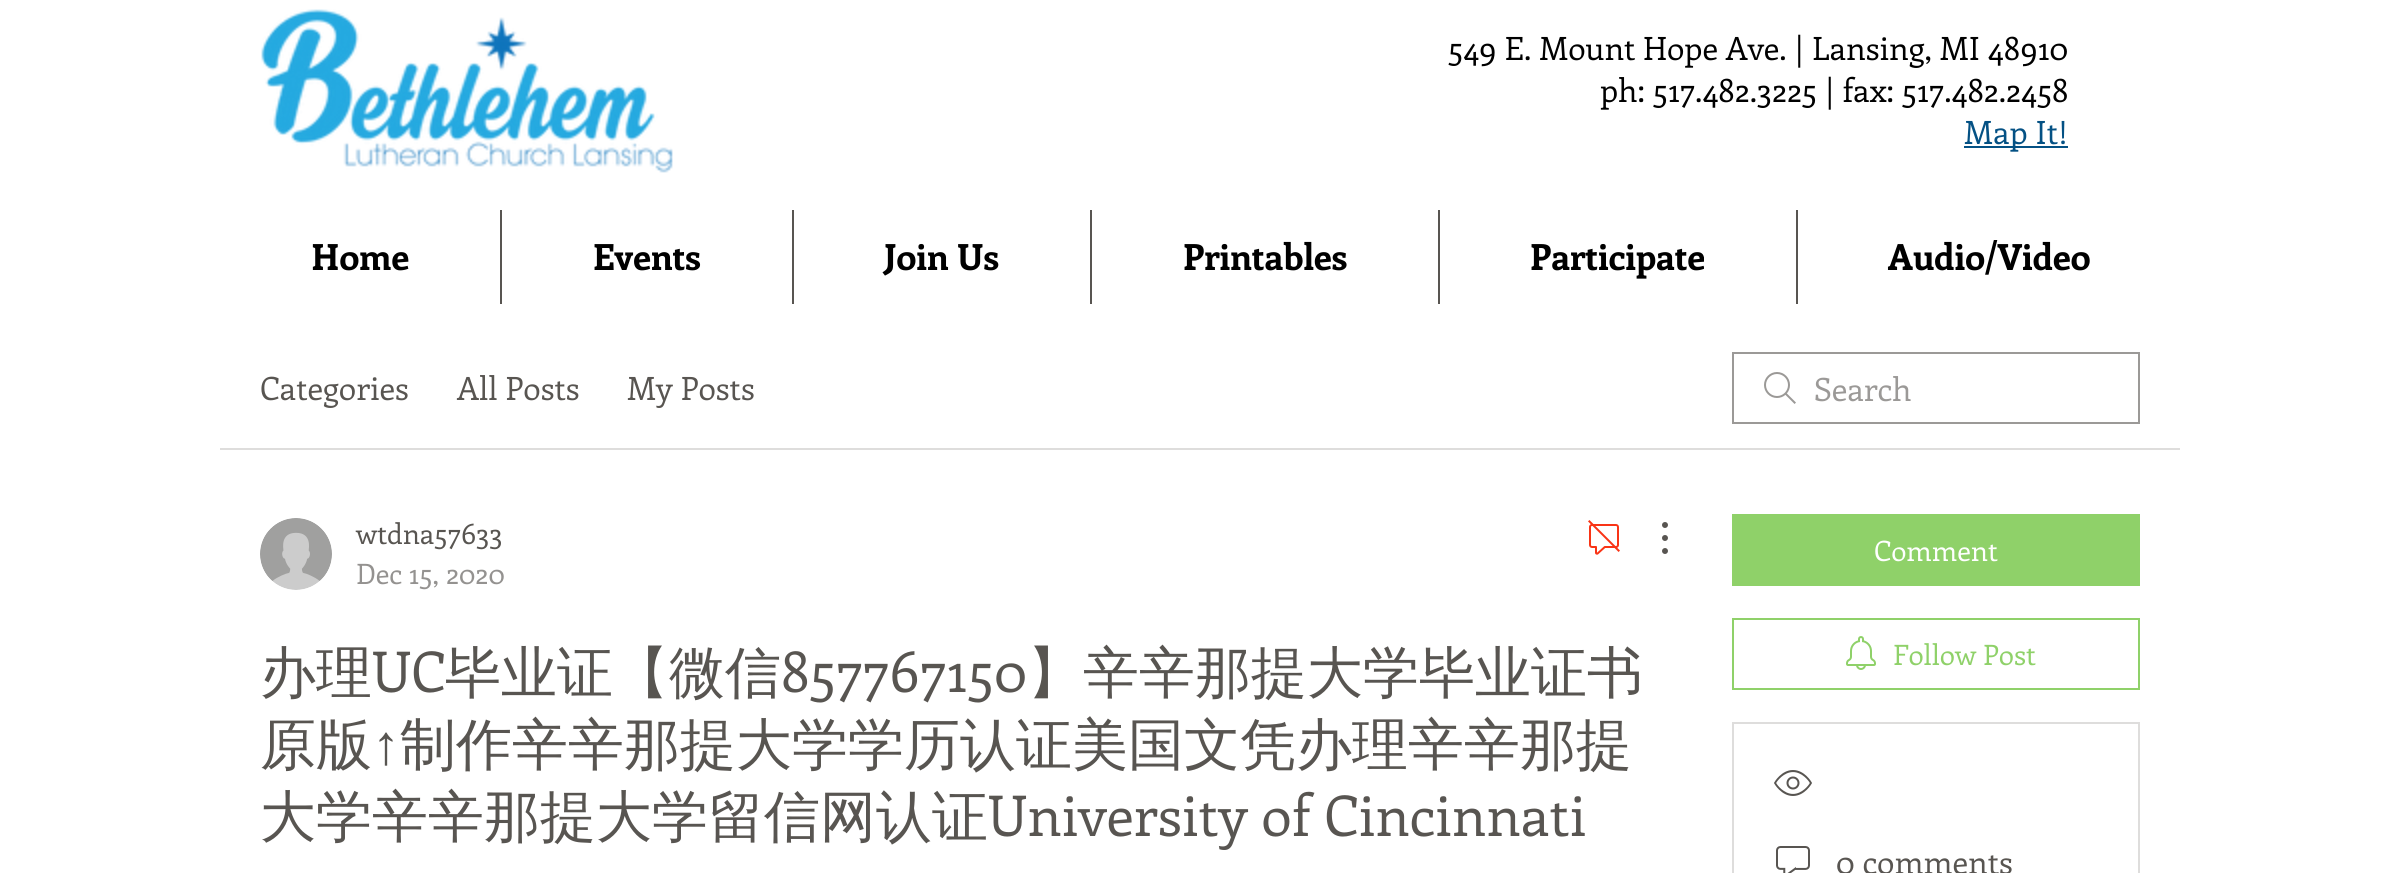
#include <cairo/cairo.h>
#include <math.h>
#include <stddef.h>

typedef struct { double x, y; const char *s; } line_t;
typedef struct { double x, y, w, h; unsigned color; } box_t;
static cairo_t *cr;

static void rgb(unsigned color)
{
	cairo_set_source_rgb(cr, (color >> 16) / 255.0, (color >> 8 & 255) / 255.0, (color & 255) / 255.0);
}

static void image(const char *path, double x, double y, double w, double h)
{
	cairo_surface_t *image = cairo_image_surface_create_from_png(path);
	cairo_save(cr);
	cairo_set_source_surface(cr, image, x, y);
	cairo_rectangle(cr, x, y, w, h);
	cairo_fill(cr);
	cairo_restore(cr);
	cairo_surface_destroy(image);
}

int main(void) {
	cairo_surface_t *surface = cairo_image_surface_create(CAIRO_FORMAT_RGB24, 2400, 873);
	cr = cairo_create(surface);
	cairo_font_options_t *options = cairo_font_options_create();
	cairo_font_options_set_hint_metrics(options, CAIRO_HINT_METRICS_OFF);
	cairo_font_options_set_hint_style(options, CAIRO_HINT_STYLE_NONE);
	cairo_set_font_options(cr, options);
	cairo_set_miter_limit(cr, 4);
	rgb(0xffffff);
	cairo_paint(cr);
	image("img/1.png", 261, 9, 412, 164);
	{
		static const box_t items[] = {
			{1964, 146, 104, 2, 0x045184},
			{500, 210, 2, 94, 0x585551},
			{792, 210, 2, 94, 0x585551},
			{1090, 210, 2, 94, 0x585551},
			{1438, 210, 2, 94, 0x585551},
			{1796, 210, 2, 94, 0x585551},
			{220, 448, 1960, 2, 0xdedddc},
		};
		for (size_t i = 0; i < sizeof items / sizeof *items; i++) {
			rgb(items[i].color);
			cairo_rectangle(cr, items[i].x, items[i].y, items[i].w, items[i].h);
			cairo_fill(cr);
		}
	}
	image("img/2.png", 1764, 372, 32, 32);
	cairo_rectangle(cr, 1733, 353, 406, 70);
	rgb(0x9b9997);
	cairo_stroke(cr);
	image("img/3.png", 260, 518, 72, 72);
	image("img/4.png", 1588, 520, 32, 35);
	image("img/5.png", 1662, 522, 6, 32);
	rgb(0x8fd169);
	cairo_rectangle(cr, 1732, 514, 408, 72);
	cairo_fill(cr);
	cairo_rectangle(cr, 1733, 619, 406, 70);
	cairo_stroke(cr);
	image("img/6.png", 1846, 636, 30, 34);
	cairo_rectangle(cr, 1733, 723, 406, 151);
	rgb(0xdedddc);
	cairo_stroke(cr);
	image("img/7.png", 1774, 770, 38, 26);
	image("img/8.png", 1776, 846, 34, 27);
	cairo_select_font_face(cr, "Enriqueta", CAIRO_FONT_SLANT_NORMAL, CAIRO_FONT_WEIGHT_NORMAL);
	cairo_set_font_size(cr, 32);
	rgb(0x000000);
	cairo_move_to(cr, 1448, 60);
	cairo_show_text(cr, "549 E. Mount Hope Ave. | Lansing, MI 48910");
	cairo_move_to(cr, 1600, 102);
	cairo_show_text(cr, "ph: 517.482.3225 | fax: 517.482.2458");
	rgb(0x045184);
	cairo_move_to(cr, 1964, 144);
	cairo_show_text(cr, "Map It!");
	cairo_select_font_face(cr, "Enriqueta", CAIRO_FONT_SLANT_NORMAL, CAIRO_FONT_WEIGHT_BOLD);
	cairo_set_font_size(cr, 36);
	rgb(0x000000);
	{
		static const line_t items[] = {
			{311, 270, "Home"},
			{593, 270, "Events"},
			{884, 270, "Join Us"},
			{1183, 270, "Printables"},
			{1530, 270, "Participate"},
			{1888, 270, "Audio/Video"},
		};
		for (size_t i = 0; i < sizeof items / sizeof *items; i++) {
			cairo_move_to(cr, items[i].x, items[i].y);
			cairo_show_text(cr, items[i].s);
		}
	}
	cairo_select_font_face(cr, "Enriqueta", CAIRO_FONT_SLANT_NORMAL, CAIRO_FONT_WEIGHT_NORMAL);
	cairo_set_font_size(cr, 32);
	rgb(0x585551);
	{
		static const line_t items[] = {
			{260, 400, "Categories"},
			{457, 400, "All Posts"},
			{627, 400, "My Posts"},
		};
		for (size_t i = 0; i < sizeof items / sizeof *items; i++) {
			cairo_move_to(cr, items[i].x, items[i].y);
			cairo_show_text(cr, items[i].s);
		}
	}
	rgb(0x9b9997);
	cairo_move_to(cr, 1814, 401);
	cairo_show_text(cr, "Search");
	cairo_set_font_size(cr, 28);
	rgb(0x585551);
	cairo_move_to(cr, 356, 544);
	cairo_show_text(cr, "wtdna57633");
	rgb(0x949290);
	cairo_move_to(cr, 356, 584);
	cairo_show_text(cr, "Dec 15, 2020");
	cairo_select_font_face(cr, "WenQuanYi Zen Hei Medium", CAIRO_FONT_SLANT_NORMAL, CAIRO_FONT_WEIGHT_NORMAL);
	cairo_set_font_size(cr, 56);
	rgb(0x585551);
	cairo_move_to(cr, 260, 692);
	cairo_show_text(cr, "办理");
	cairo_select_font_face(cr, "Enriqueta", CAIRO_FONT_SLANT_NORMAL, CAIRO_FONT_WEIGHT_NORMAL);
	cairo_move_to(cr, 372, 692);
	cairo_show_text(cr, "UC");
	cairo_select_font_face(cr, "WenQuanYi Zen Hei Medium", CAIRO_FONT_SLANT_NORMAL, CAIRO_FONT_WEIGHT_NORMAL);
	cairo_move_to(cr, 445, 692);
	cairo_show_text(cr, "毕业证【微信");
	cairo_select_font_face(cr, "Enriqueta", CAIRO_FONT_SLANT_NORMAL, CAIRO_FONT_WEIGHT_NORMAL);
	cairo_move_to(cr, 781, 692);
	cairo_show_text(cr, "857767150");
	cairo_select_font_face(cr, "WenQuanYi Zen Hei Medium", CAIRO_FONT_SLANT_NORMAL, CAIRO_FONT_WEIGHT_NORMAL);
	cairo_move_to(cr, 1027, 692);
	cairo_show_text(cr, "】辛辛那提大学毕业证书");
	cairo_move_to(cr, 260, 764);
	cairo_show_text(cr, "原版");
	cairo_select_font_face(cr, "Liberation Serif", CAIRO_FONT_SLANT_NORMAL, CAIRO_FONT_WEIGHT_NORMAL);
	cairo_move_to(cr, 372, 764);
	cairo_show_text(cr, "↑");
	cairo_select_font_face(cr, "WenQuanYi Zen Hei Medium", CAIRO_FONT_SLANT_NORMAL, CAIRO_FONT_WEIGHT_NORMAL);
	cairo_move_to(cr, 400, 764);
	cairo_show_text(cr, "制作辛辛那提大学学历认证美国文凭办理辛辛那提");
	cairo_move_to(cr, 260, 836);
	cairo_show_text(cr, "大学辛辛那提大学留信网认证");
	cairo_select_font_face(cr, "Enriqueta", CAIRO_FONT_SLANT_NORMAL, CAIRO_FONT_WEIGHT_NORMAL);
	cairo_move_to(cr, 988, 836);
	cairo_show_text(cr, "University of Cincinnati");
	cairo_set_font_size(cr, 28);
	rgb(0xffffff);
	cairo_move_to(cr, 1874, 561);
	cairo_show_text(cr, "Comment");
	rgb(0x8fd169);
	cairo_move_to(cr, 1893, 665);
	cairo_show_text(cr, "Follow Post");
	cairo_set_font_size(cr, 32);
	rgb(0x585551);
	cairo_move_to(cr, 1836, 874);
	cairo_show_text(cr, "0 comments");
	cairo_surface_write_to_png(surface, "page.png");
	cairo_font_options_destroy(options);
	cairo_destroy(cr);
	cairo_surface_destroy(surface);
	return 0;
}
